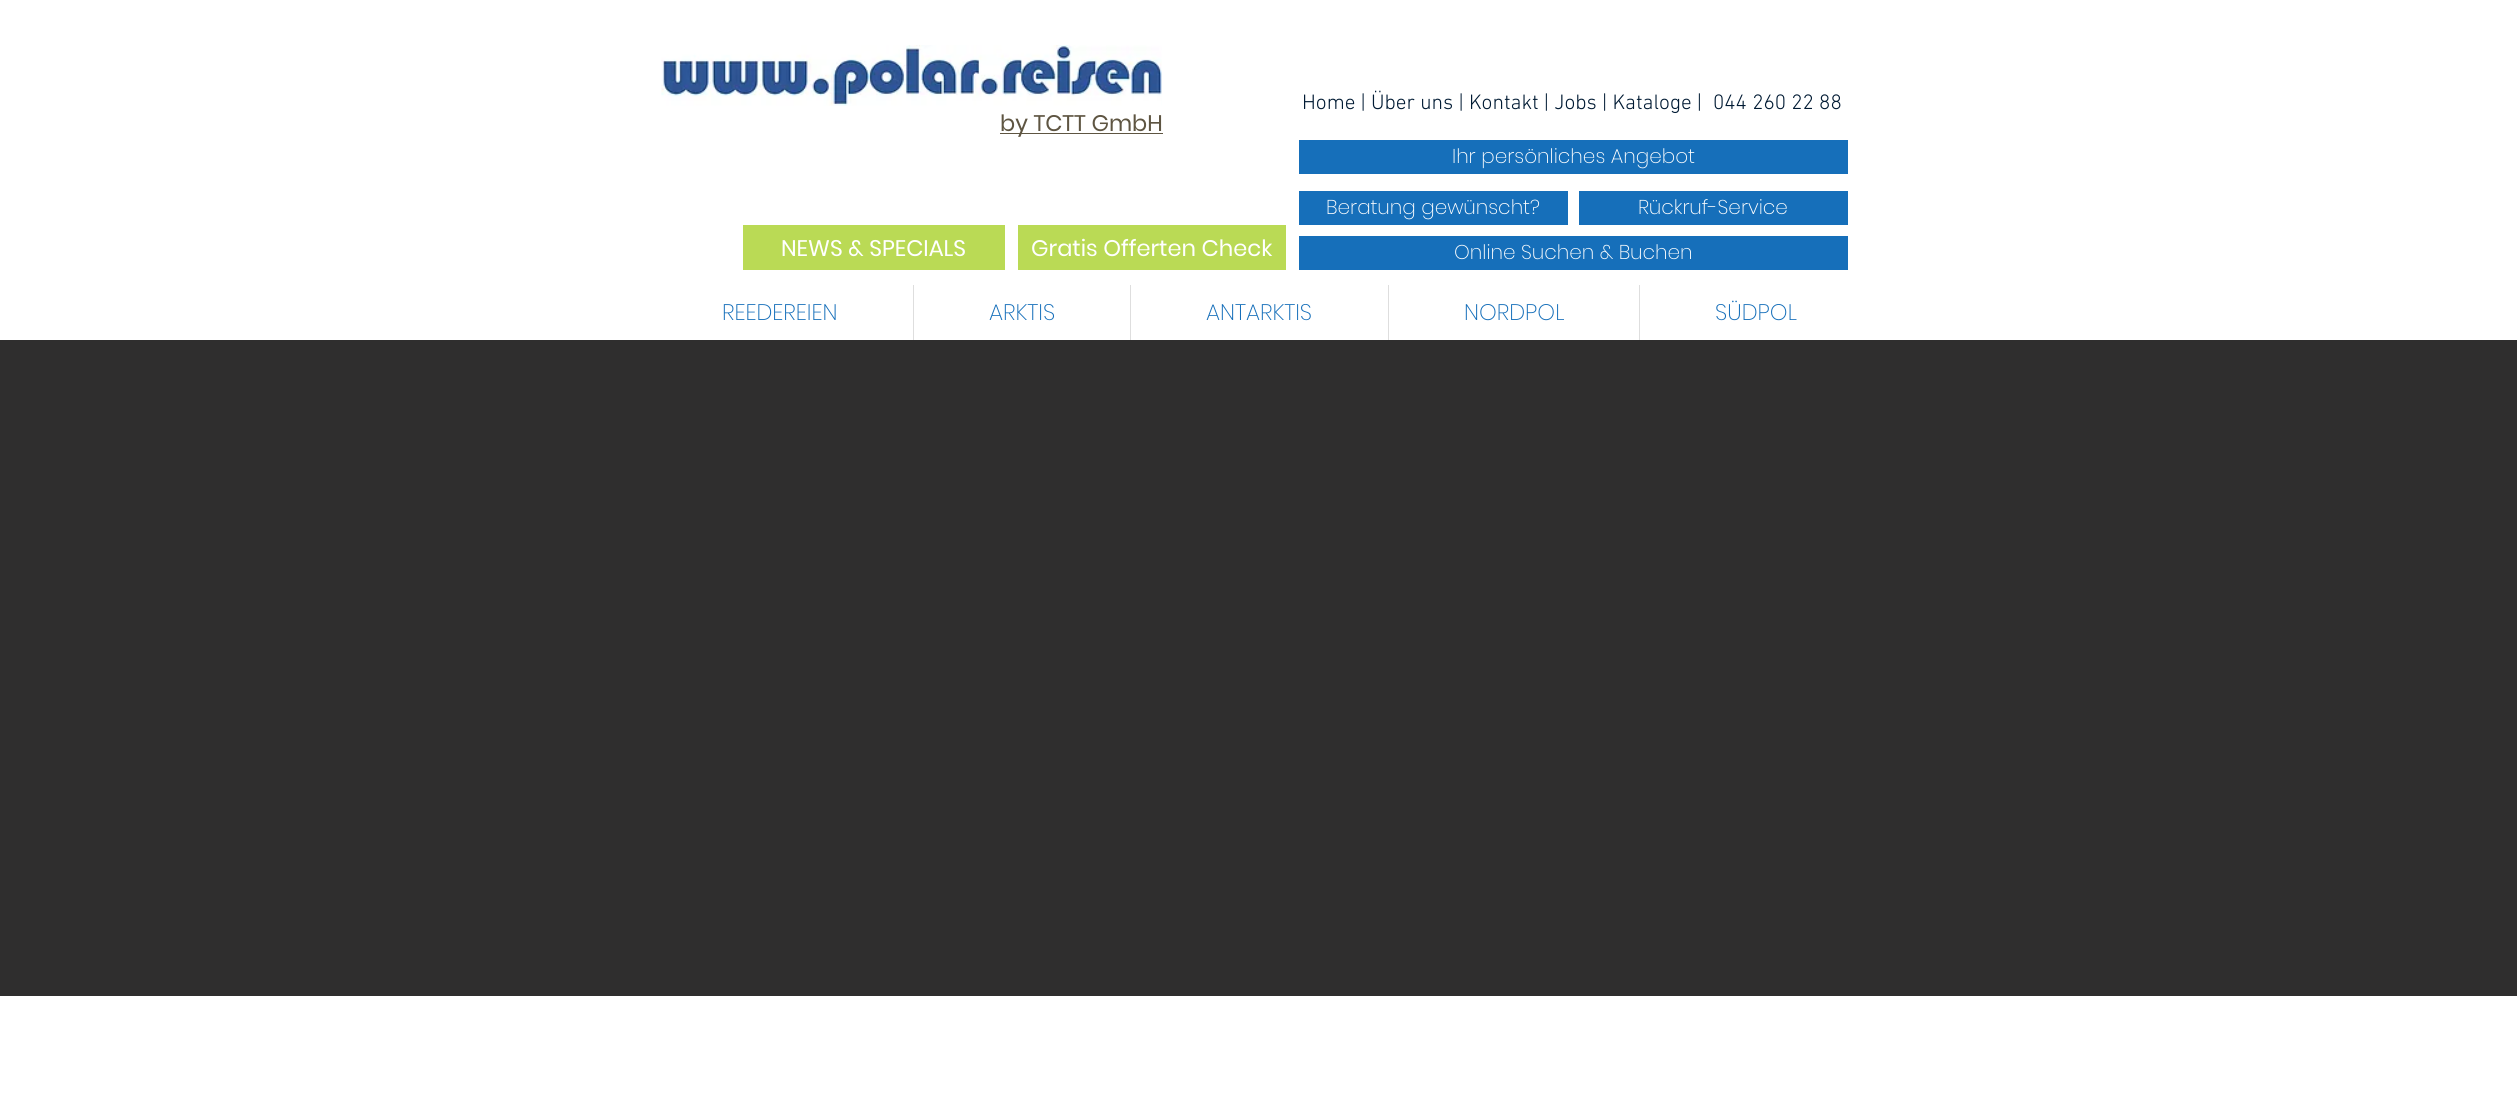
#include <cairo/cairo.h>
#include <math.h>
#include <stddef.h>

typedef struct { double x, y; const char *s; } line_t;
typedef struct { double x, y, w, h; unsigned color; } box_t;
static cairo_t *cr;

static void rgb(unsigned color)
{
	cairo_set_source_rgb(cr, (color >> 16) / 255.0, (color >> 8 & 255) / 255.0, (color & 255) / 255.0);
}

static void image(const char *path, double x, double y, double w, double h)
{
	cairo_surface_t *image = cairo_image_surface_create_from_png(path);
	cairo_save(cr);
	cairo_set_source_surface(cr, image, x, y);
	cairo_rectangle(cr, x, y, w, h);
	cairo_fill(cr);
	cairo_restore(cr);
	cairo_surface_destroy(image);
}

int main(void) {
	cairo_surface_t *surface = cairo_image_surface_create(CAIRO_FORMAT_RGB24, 2517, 1094);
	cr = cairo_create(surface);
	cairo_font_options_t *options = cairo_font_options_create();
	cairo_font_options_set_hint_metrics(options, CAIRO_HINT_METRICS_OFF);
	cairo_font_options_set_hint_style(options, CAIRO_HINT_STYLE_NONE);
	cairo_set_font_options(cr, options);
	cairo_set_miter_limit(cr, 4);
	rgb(0xffffff);
	cairo_paint(cr);
	image("img/1.png", 661, 45, 501, 61);
	{
		static const box_t items[] = {
			{1000, 133, 163, 1, 0x5e5542},
			{1299, 140, 549, 34, 0x166fba},
			{1299, 191, 269, 34, 0x166fba},
			{1579, 191, 269, 34, 0x166fba},
			{743, 225, 262, 45, 0xbada55},
			{1018, 225, 268, 45, 0xbada55},
			{1299, 236, 549, 34, 0x166fba},
			{913, 285, 1, 55, 0xdedede},
			{1130, 285, 1, 55, 0xdedede},
			{1388, 285, 1, 55, 0xdedede},
			{1639, 285, 1, 55, 0xdedede},
			{0, 340, 2517, 656, 0x2f2e2e},
		};
		for (size_t i = 0; i < sizeof items / sizeof *items; i++) {
			rgb(items[i].color);
			cairo_rectangle(cr, items[i].x, items[i].y, items[i].w, items[i].h);
			cairo_fill(cr);
		}
	}
	cairo_select_font_face(cr, "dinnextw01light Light", CAIRO_FONT_SLANT_NORMAL, CAIRO_FONT_WEIGHT_NORMAL);
	cairo_set_font_size(cr, 21.25);
	rgb(0x001a33);
	cairo_move_to(cr, 1302, 109);
	cairo_show_text(cr, "Home | Über uns | Kontakt | Jobs | Kataloge |");
	cairo_move_to(cr, 1713, 109);
	cairo_show_text(cr, "044 260 22 88");
	cairo_select_font_face(cr, "Poppins", CAIRO_FONT_SLANT_NORMAL, CAIRO_FONT_WEIGHT_NORMAL);
	cairo_set_font_size(cr, 22.5);
	rgb(0x5e5542);
	cairo_move_to(cr, 1000, 131);
	cairo_show_text(cr, "by TCTT GmbH");
	cairo_select_font_face(cr, "Poppins ExtraLight", CAIRO_FONT_SLANT_NORMAL, CAIRO_FONT_WEIGHT_NORMAL);
	cairo_set_font_size(cr, 20);
	rgb(0xffffff);
	{
		static const line_t items[] = {
			{1452, 163, "Ihr persönliches Angebot"},
			{1326, 214, "Beratung gewünscht?"},
			{1638, 214, "Rückruf-Service"},
		};
		for (size_t i = 0; i < sizeof items / sizeof *items; i++) {
			cairo_move_to(cr, items[i].x, items[i].y);
			cairo_show_text(cr, items[i].s);
		}
	}
	cairo_select_font_face(cr, "Poppins", CAIRO_FONT_SLANT_NORMAL, CAIRO_FONT_WEIGHT_NORMAL);
	cairo_set_font_size(cr, 22.5);
	cairo_move_to(cr, 781, 256);
	cairo_show_text(cr, "NEWS & SPECIALS");
	cairo_move_to(cr, 1031, 256);
	cairo_show_text(cr, "Gratis Offerten Check");
	cairo_select_font_face(cr, "Poppins ExtraLight", CAIRO_FONT_SLANT_NORMAL, CAIRO_FONT_WEIGHT_NORMAL);
	cairo_set_font_size(cr, 20);
	cairo_move_to(cr, 1454, 259);
	cairo_show_text(cr, "Online Suchen & Buchen");
	cairo_set_font_size(cr, 22.5);
	rgb(0x166fba);
	{
		static const line_t items[] = {
			{722, 320, "REEDEREIEN"},
			{989, 320, "ARKTIS"},
			{1206, 320, "ANTARKTIS"},
			{1464, 320, "NORDPOL"},
			{1715, 320, "SÜDPOL"},
		};
		for (size_t i = 0; i < sizeof items / sizeof *items; i++) {
			cairo_move_to(cr, items[i].x, items[i].y);
			cairo_show_text(cr, items[i].s);
		}
	}
	cairo_surface_write_to_png(surface, "page.png");
	cairo_font_options_destroy(options);
	cairo_destroy(cr);
	cairo_surface_destroy(surface);
	return 0;
}
